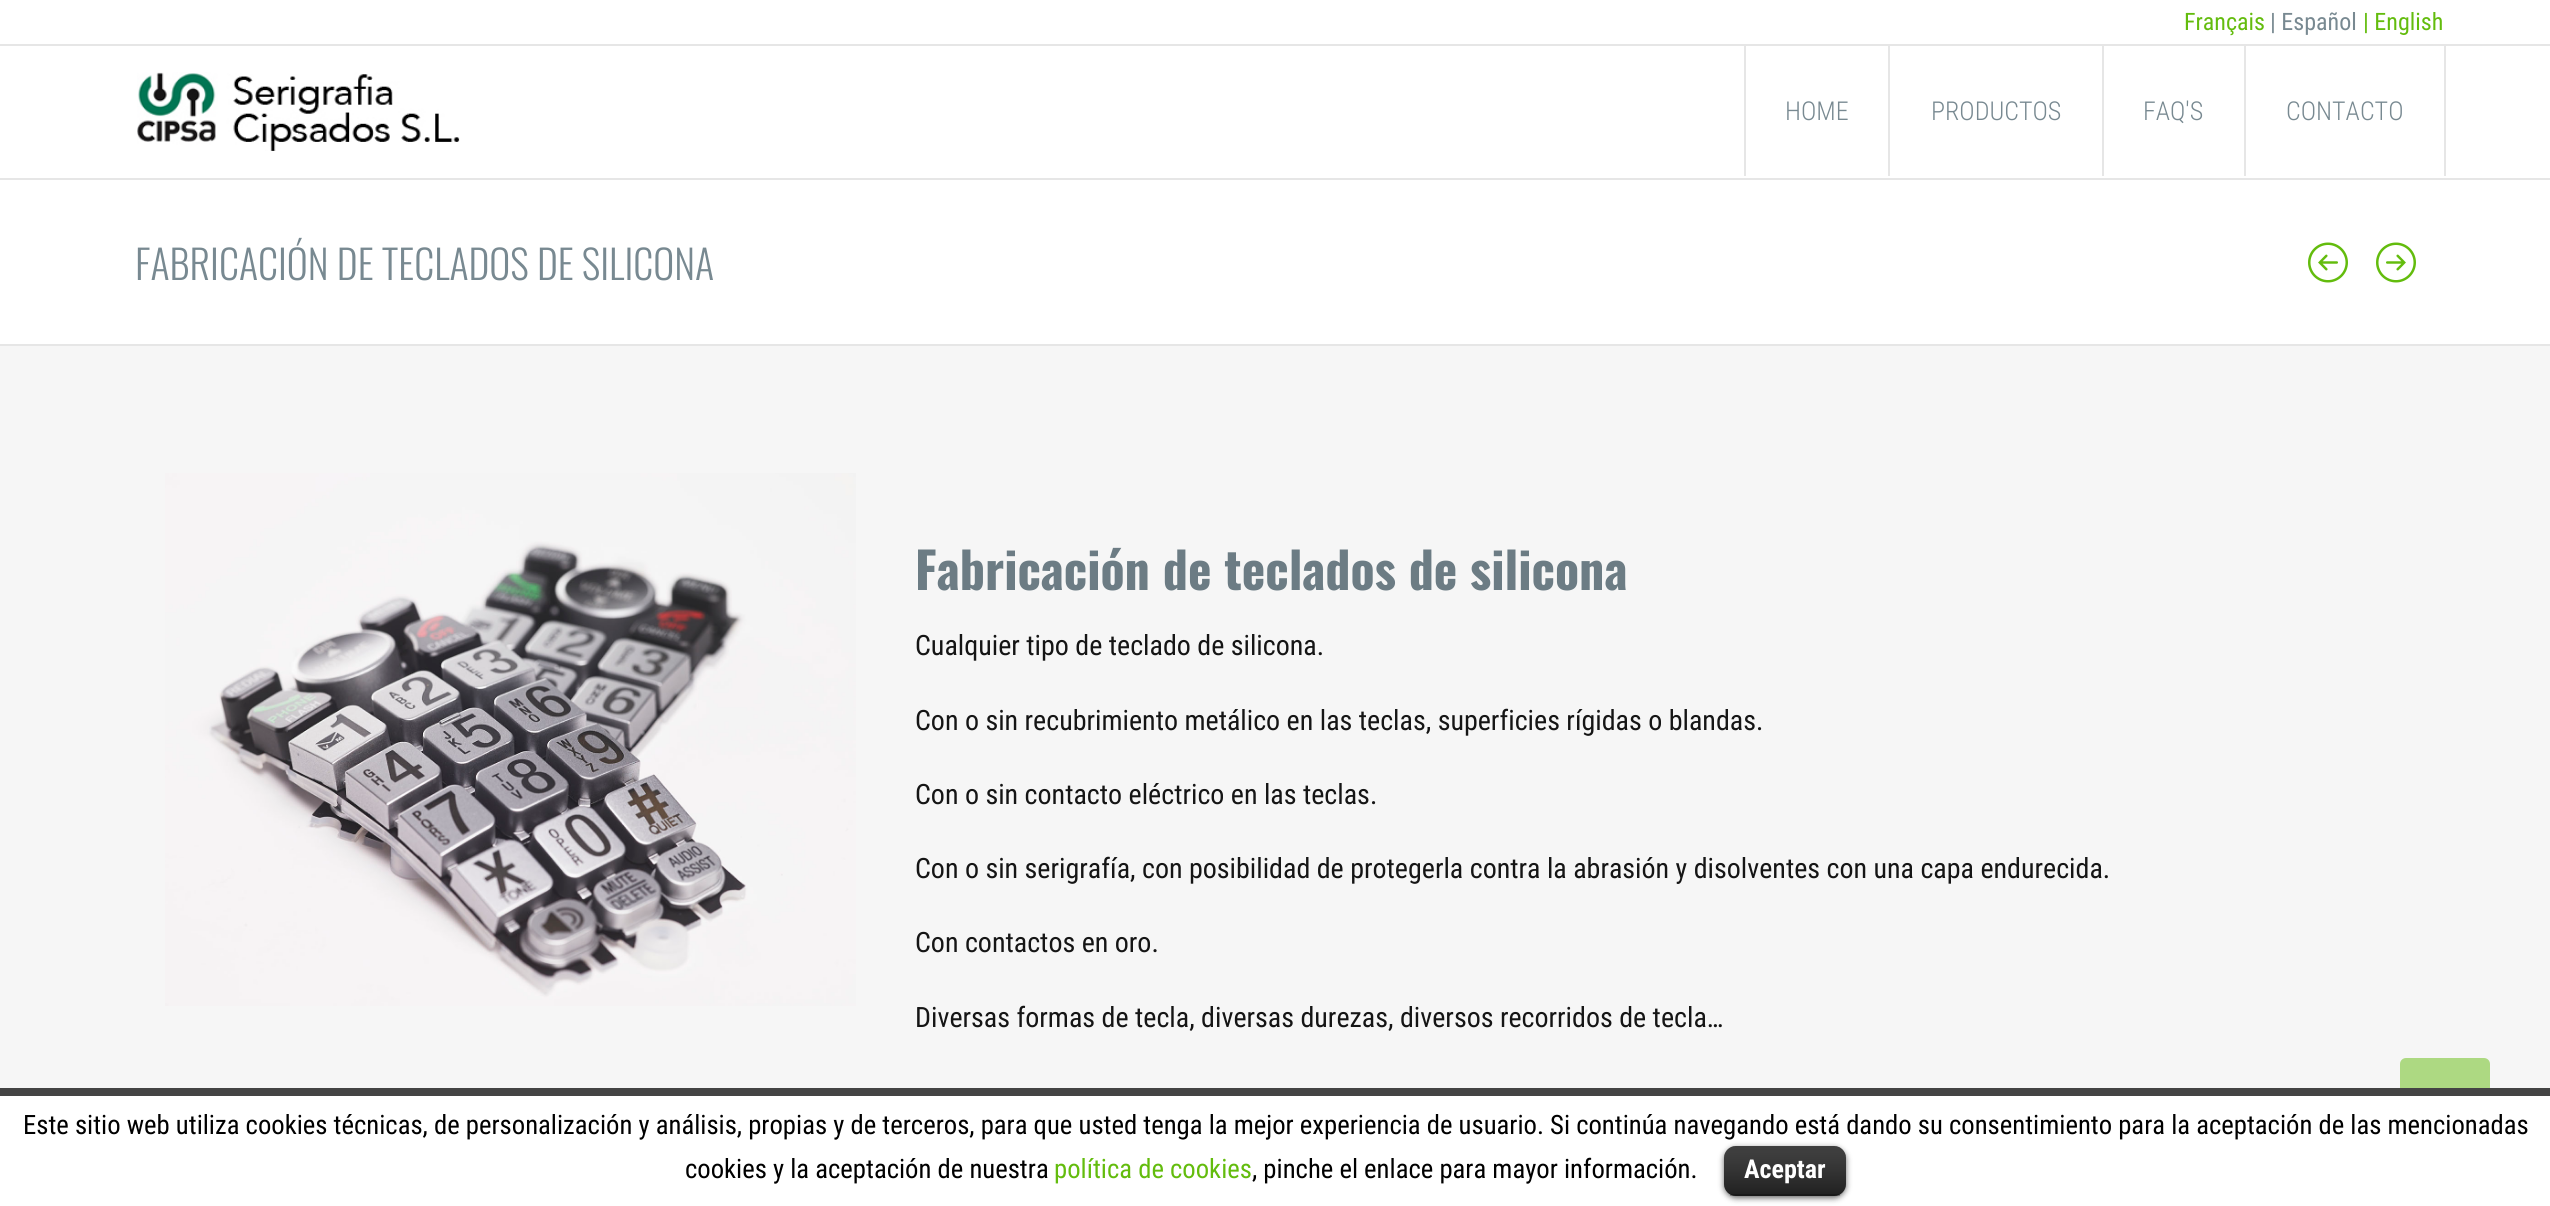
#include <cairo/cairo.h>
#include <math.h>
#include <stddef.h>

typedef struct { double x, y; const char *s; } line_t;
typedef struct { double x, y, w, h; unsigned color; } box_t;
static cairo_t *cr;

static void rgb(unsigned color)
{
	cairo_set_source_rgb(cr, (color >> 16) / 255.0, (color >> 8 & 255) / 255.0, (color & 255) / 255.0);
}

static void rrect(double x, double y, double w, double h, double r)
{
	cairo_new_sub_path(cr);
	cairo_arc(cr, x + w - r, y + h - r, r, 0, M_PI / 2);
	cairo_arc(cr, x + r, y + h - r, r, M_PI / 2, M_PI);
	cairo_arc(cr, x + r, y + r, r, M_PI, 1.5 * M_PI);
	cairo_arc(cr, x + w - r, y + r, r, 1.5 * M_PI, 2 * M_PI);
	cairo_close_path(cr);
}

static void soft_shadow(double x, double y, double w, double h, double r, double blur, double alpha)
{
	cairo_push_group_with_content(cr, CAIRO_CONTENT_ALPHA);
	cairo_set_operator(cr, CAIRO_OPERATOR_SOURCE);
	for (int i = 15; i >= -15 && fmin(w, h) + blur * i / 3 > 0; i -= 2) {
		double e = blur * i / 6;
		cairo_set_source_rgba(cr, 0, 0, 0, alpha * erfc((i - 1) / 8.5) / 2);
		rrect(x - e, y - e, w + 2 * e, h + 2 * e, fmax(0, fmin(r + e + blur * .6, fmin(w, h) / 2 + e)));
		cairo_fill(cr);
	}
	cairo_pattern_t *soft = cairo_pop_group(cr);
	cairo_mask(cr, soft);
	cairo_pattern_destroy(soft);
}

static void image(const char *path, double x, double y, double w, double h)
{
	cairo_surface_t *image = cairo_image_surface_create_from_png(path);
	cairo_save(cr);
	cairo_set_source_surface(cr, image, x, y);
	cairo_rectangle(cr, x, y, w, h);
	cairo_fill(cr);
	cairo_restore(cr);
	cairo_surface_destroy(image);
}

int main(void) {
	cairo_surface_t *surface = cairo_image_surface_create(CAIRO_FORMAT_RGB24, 2550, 1206);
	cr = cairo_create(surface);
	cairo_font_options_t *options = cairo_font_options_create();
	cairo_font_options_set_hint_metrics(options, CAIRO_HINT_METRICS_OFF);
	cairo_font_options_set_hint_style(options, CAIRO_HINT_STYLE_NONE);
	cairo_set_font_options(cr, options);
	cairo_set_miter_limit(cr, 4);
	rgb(0xffffff);
	cairo_paint(cr);
	rgb(0xe6e6e6);
	cairo_rectangle(cr, 0, 44, 2550, 2);
	cairo_fill(cr);
	cairo_rectangle(cr, 0, 178, 2550, 2);
	cairo_fill(cr);
	image("img/1.png", 137, 72, 323, 79);
	{
		static const box_t items[] = {
			{1744, 46, 2, 130, 0xe6e6e6},
			{1888, 46, 2, 130, 0xe6e6e6},
			{2102, 46, 2, 130, 0xe6e6e6},
			{2444, 46, 2, 130, 0xe6e6e6},
			{2244, 46, 2, 130, 0xe6e6e6},
			{0, 344, 2550, 2, 0xe6e6e6},
		};
		for (size_t i = 0; i < sizeof items / sizeof *items; i++) {
			rgb(items[i].color);
			cairo_rectangle(cr, items[i].x, items[i].y, items[i].w, items[i].h);
			cairo_fill(cr);
		}
	}
	image("img/2.png", 2308, 242, 40, 41);
	image("img/3.png", 2376, 242, 40, 41);
	rgb(0xf6f6f6);
	cairo_rectangle(cr, 0, 346, 2550, 742);
	cairo_fill(cr);
	image("img/4.png", 165, 473, 691, 533);
	rgb(0xadd982);
	rrect(2400, 1058, 90, 88, 6);
	cairo_fill(cr);
	rgb(0xffffff);
	cairo_rectangle(cr, 2400, 1096, 90, 50);
	cairo_fill(cr);
	rgb(0x444444);
	cairo_rectangle(cr, 0, 1088, 2550, 8);
	cairo_fill(cr);
	rgb(0x000000);
	soft_shadow(1724, 1148, 122, 50, 12, 3, 0.6);
	rgb(0x000000);
	rrect(1724, 1146, 122, 50, 12);
	cairo_fill(cr);
	image("img/5.png", 1724, 1146, 122, 50);
	cairo_set_source_rgba(cr, 0, 0, 0, 0.25);
	cairo_rectangle(cr, 1730, 1194, 110, 2);
	cairo_fill(cr);
	cairo_select_font_face(cr, "Roboto Condensed", CAIRO_FONT_SLANT_NORMAL, CAIRO_FONT_WEIGHT_NORMAL);
	cairo_set_font_size(cr, 24);
	rgb(0x63bc0d);
	cairo_move_to(cr, 2184, 30);
	cairo_show_text(cr, "Français");
	rgb(0x788991);
	cairo_move_to(cr, 2270, 30);
	cairo_show_text(cr, "| Español");
	rgb(0x63bc0d);
	cairo_move_to(cr, 2363, 30);
	cairo_show_text(cr, "| English");
	cairo_select_font_face(cr, "Roboto Condensed Light", CAIRO_FONT_SLANT_NORMAL, CAIRO_FONT_WEIGHT_NORMAL);
	cairo_set_font_size(cr, 26);
	rgb(0x788991);
	{
		static const line_t items[] = {
			{1785, 120, "HOME"},
			{1931, 120, "PRODUCTOS"},
			{2143, 120, "FAQ'S"},
			{2286, 120, "CONTACTO"},
		};
		for (size_t i = 0; i < sizeof items / sizeof *items; i++) {
			cairo_move_to(cr, items[i].x, items[i].y);
			cairo_show_text(cr, items[i].s);
		}
	}
	cairo_select_font_face(cr, "Oswald Light", CAIRO_FONT_SLANT_NORMAL, CAIRO_FONT_WEIGHT_NORMAL);
	cairo_set_font_size(cr, 40);
	cairo_move_to(cr, 135, 280);
	cairo_show_text(cr, "FABRICACIÓN DE TECLADOS DE SILICONA");
	cairo_select_font_face(cr, "Oswald", CAIRO_FONT_SLANT_NORMAL, CAIRO_FONT_WEIGHT_BOLD);
	cairo_set_font_size(cr, 50);
	rgb(0x6c7c84);
	cairo_move_to(cr, 915, 590);
	cairo_show_text(cr, "Fabricación de teclados de silicona");
	cairo_select_font_face(cr, "Roboto Condensed", CAIRO_FONT_SLANT_NORMAL, CAIRO_FONT_WEIGHT_NORMAL);
	cairo_set_font_size(cr, 28);
	rgb(0x151515);
	{
		static const line_t items[] = {
			{915, 655, "Cualquier tipo de teclado de silicona."},
			{915, 730, "Con o sin recubrimiento metálico en las teclas, superficies rígidas o blandas."},
			{915, 804, "Con o sin contacto eléctrico en las teclas."},
			{915, 878, "Con o sin serigrafía, con posibilidad de protegerla contra la abrasión y disolventes con una capa endurecida."},
			{915, 952, "Con contactos en oro."},
			{915, 1027, "Diversas formas de tecla, diversas durezas, diversos recorridos de tecla…"},
		};
		for (size_t i = 0; i < sizeof items / sizeof *items; i++) {
			cairo_move_to(cr, items[i].x, items[i].y);
			cairo_show_text(cr, items[i].s);
		}
	}
	cairo_set_font_size(cr, 26.67);
	rgb(0x000000);
	cairo_move_to(cr, 23, 1134);
	cairo_show_text(cr, "Este sitio web utiliza cookies técnicas, de personalización y análisis, propias y de terceros, para que usted tenga la mejor experiencia de usuario. Si continúa navegando está dando su consentimiento para la aceptación de las mencionadas");
	cairo_move_to(cr, 685, 1178);
	cairo_show_text(cr, "cookies y la aceptación de nuestra");
	rgb(0x63bc0d);
	cairo_move_to(cr, 1054, 1178);
	cairo_show_text(cr, "política de cookies");
	rgb(0x000000);
	cairo_move_to(cr, 1252, 1178);
	cairo_show_text(cr, ", pinche el enlace para mayor información.");
	cairo_select_font_face(cr, "Roboto Condensed", CAIRO_FONT_SLANT_NORMAL, CAIRO_FONT_WEIGHT_BOLD);
	cairo_set_font_size(cr, 26);
	rgb(0xffffff);
	cairo_move_to(cr, 1744, 1178);
	cairo_show_text(cr, "Aceptar");
	cairo_surface_write_to_png(surface, "page.png");
	cairo_font_options_destroy(options);
	cairo_destroy(cr);
	cairo_surface_destroy(surface);
	return 0;
}
